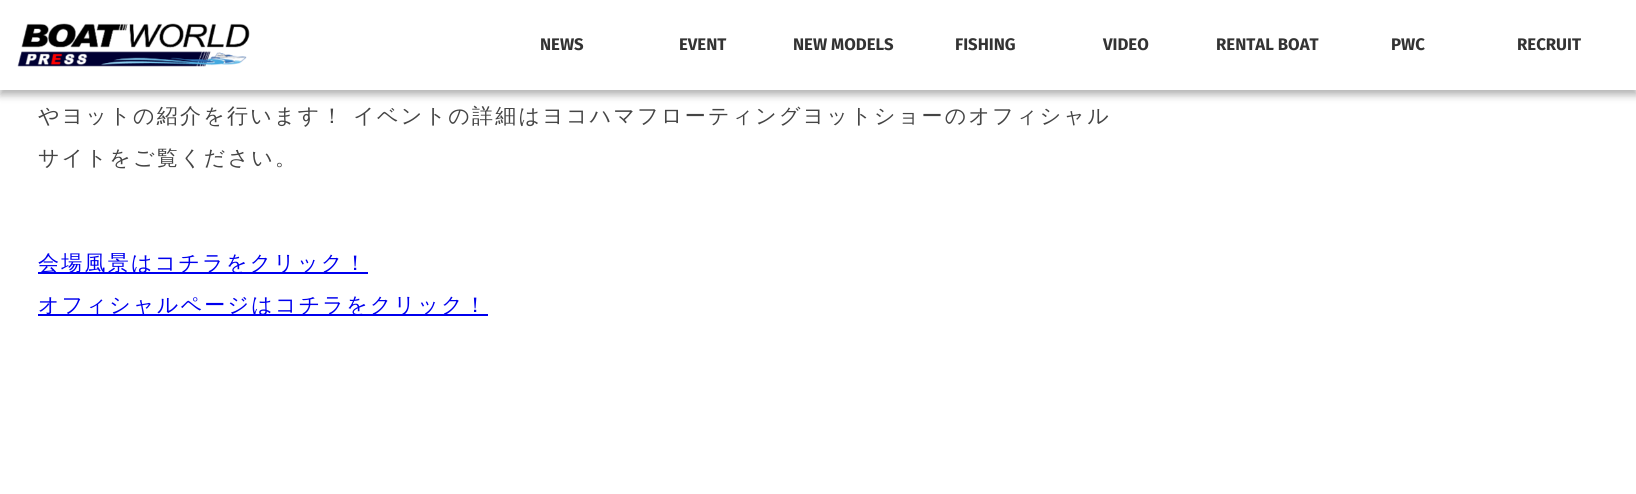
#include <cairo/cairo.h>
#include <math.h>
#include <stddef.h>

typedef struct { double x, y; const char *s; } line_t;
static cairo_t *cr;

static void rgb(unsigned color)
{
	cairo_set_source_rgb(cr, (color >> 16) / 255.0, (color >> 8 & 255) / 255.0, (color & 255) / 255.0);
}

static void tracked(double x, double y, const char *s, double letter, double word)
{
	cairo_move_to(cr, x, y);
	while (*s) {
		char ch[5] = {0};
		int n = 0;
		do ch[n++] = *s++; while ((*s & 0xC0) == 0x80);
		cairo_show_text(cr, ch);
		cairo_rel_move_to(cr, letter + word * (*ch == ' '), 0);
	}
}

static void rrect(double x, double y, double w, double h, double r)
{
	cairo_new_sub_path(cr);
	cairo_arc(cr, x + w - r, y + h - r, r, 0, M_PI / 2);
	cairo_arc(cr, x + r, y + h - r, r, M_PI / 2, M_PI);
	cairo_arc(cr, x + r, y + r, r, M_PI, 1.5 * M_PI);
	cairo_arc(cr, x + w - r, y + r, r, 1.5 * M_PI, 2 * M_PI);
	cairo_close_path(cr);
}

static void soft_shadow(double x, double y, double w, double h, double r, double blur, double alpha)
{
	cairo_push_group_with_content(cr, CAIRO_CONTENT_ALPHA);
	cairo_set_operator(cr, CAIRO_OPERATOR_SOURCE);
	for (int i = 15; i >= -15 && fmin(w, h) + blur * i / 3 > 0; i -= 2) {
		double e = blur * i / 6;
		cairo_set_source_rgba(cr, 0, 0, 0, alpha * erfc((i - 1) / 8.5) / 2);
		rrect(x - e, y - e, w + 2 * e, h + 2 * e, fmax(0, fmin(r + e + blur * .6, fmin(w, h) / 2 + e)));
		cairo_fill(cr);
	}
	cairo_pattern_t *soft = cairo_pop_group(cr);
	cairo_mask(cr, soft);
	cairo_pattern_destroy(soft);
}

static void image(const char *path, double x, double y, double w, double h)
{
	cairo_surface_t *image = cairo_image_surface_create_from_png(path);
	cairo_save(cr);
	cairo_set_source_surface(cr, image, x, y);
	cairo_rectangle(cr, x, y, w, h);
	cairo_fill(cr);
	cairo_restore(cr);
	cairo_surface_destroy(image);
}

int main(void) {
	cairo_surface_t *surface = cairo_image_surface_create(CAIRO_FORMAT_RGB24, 1636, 494);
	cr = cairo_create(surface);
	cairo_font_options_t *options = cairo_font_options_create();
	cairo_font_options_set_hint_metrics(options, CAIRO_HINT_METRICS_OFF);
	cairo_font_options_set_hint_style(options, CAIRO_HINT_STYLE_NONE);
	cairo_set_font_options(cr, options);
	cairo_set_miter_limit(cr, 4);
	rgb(0xffffff);
	cairo_paint(cr);
	rgb(0x000000);
	soft_shadow(0, 5, 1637, 90, 0, 4, 0.3);
	rgb(0xffffff);
	cairo_rectangle(cr, 0, 0, 1636, 90);
	cairo_fill(cr);
	image("img/1.png", 17, 23, 233, 44);
	rgb(0x0000ee);
	cairo_rectangle(cr, 38, 272, 330, 2);
	cairo_fill(cr);
	cairo_rectangle(cr, 38, 314, 450, 2);
	cairo_fill(cr);
	cairo_select_font_face(cr, "Fira Sans", CAIRO_FONT_SLANT_NORMAL, CAIRO_FONT_WEIGHT_BOLD);
	cairo_set_font_size(cr, 16.75);
	rgb(0x333333);
	{
		static const line_t items[] = {
			{540, 50, "NEWS"},
			{679, 50, "EVENT"},
			{793, 50, "NEW MODELS"},
			{955, 50, "FISHING"},
			{1103, 50, "VIDEO"},
			{1216, 50, "RENTAL BOAT"},
			{1391, 50, "PWC"},
			{1517, 50, "RECRUIT"},
		};
		for (size_t i = 0; i < sizeof items / sizeof *items; i++) {
			cairo_move_to(cr, items[i].x, items[i].y);
			cairo_show_text(cr, items[i].s);
		}
	}
	cairo_select_font_face(cr, "WenQuanYi Zen Hei Medium", CAIRO_FONT_SLANT_NORMAL, CAIRO_FONT_WEIGHT_NORMAL);
	cairo_set_font_size(cr, 21);
	rgb(0x454545);
	tracked(38, 123, "やヨットの紹介を行います！ イベントの詳細はヨコハマフローティングヨットショーのオフィシャル", 2.25, 0);
	tracked(38, 165, "サイトをご覧ください。", 2.25, 0);
	rgb(0x0000ee);
	tracked(38, 270, "会場風景はコチラをクリック！", 2.25, 0);
	tracked(38, 312, "オフィシャルページはコチラをクリック！", 2.25, 0);
	cairo_surface_write_to_png(surface, "page.png");
	cairo_font_options_destroy(options);
	cairo_destroy(cr);
	cairo_surface_destroy(surface);
	return 0;
}
